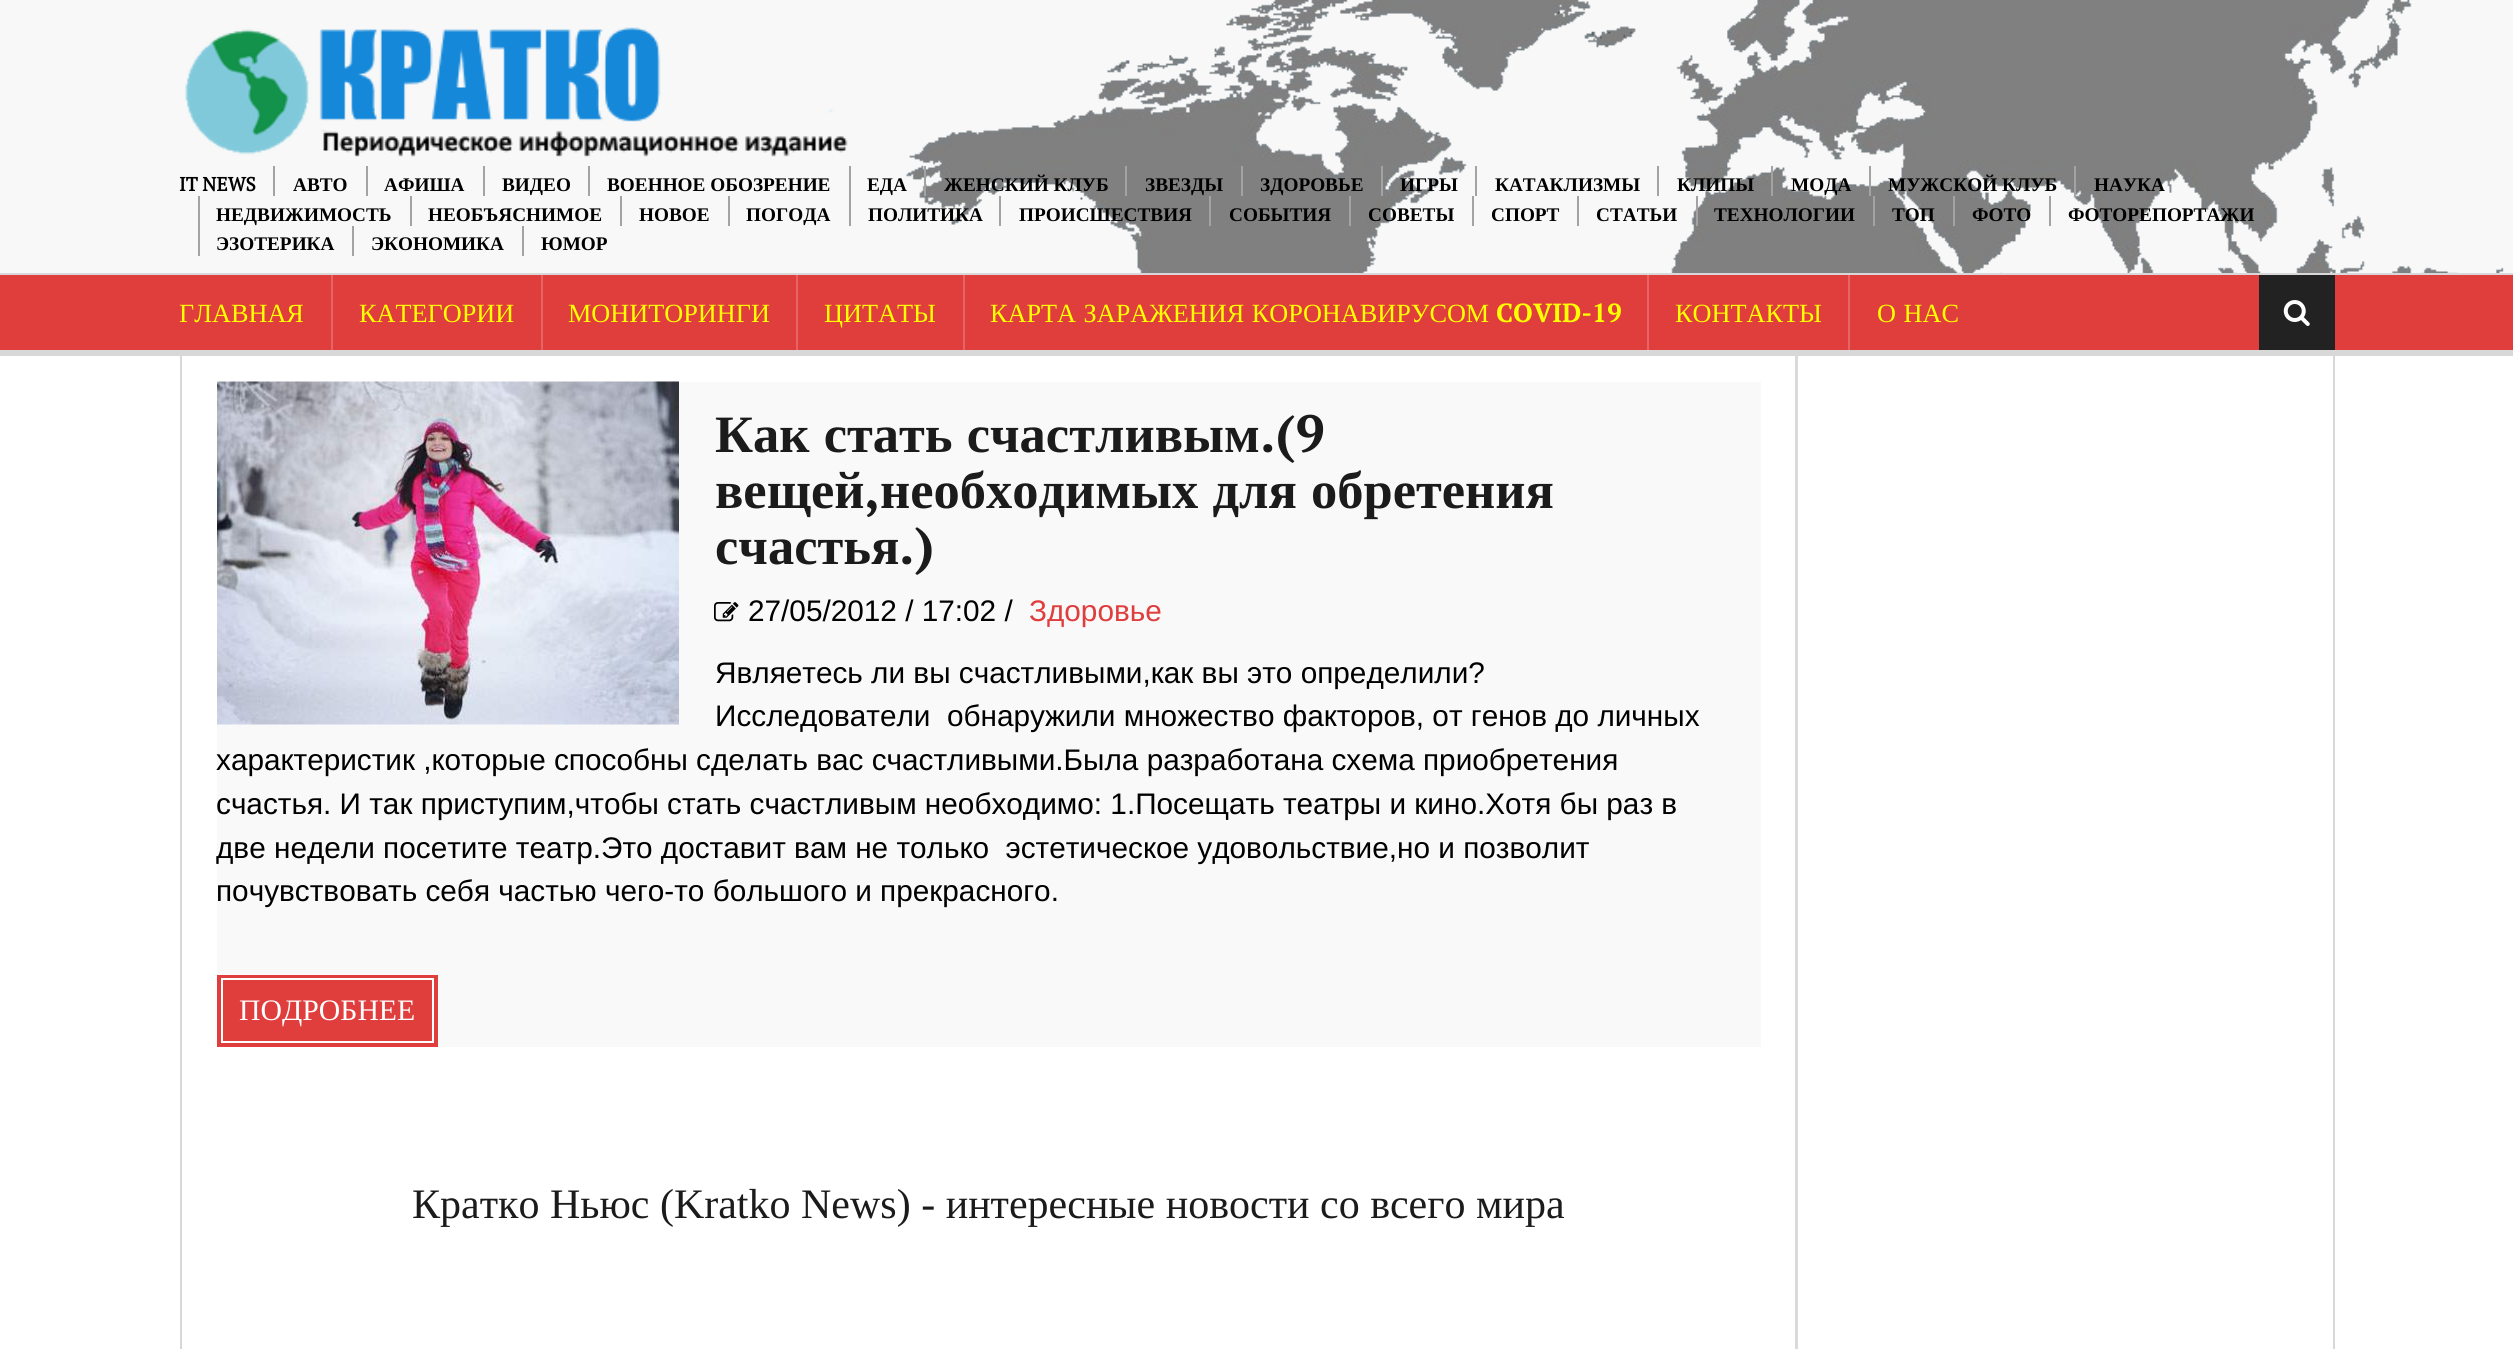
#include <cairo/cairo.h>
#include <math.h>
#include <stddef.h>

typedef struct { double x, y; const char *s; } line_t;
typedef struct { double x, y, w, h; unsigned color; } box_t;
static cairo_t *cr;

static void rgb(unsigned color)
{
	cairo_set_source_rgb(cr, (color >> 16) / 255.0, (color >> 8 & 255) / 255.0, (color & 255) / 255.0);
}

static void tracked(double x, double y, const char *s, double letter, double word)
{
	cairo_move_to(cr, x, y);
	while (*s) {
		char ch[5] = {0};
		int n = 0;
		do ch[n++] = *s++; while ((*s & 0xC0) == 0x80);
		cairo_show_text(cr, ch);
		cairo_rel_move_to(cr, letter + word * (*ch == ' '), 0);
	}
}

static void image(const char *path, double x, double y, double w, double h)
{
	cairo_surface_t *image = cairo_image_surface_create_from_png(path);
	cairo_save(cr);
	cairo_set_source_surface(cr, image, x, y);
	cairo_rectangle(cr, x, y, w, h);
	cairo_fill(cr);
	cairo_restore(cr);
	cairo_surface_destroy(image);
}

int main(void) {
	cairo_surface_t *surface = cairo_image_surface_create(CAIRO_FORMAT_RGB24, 2513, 1349);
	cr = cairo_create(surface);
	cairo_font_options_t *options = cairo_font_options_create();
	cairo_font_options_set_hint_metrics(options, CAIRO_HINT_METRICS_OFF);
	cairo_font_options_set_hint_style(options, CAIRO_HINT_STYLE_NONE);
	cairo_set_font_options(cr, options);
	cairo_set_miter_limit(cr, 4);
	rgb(0xffffff);
	cairo_paint(cr);
	rgb(0xf8f8f8);
	cairo_rectangle(cr, 0, 0, 2513, 273);
	cairo_fill(cr);
	image("img/1.png", 906, 0, 1598, 273);
	rgb(0xd8d8d8);
	cairo_rectangle(cr, 0, 273, 2513, 2);
	cairo_fill(cr);
	image("img/2.png", 185, 27, 663, 130);
	{
		static const box_t items[] = {
			{273, 166, 2, 30, 0xa3a3a3},
			{366, 166, 2, 30, 0xa3a3a3},
			{483, 166, 2, 30, 0xa3a3a3},
			{588, 166, 2, 30, 0xa3a3a3},
			{849, 166, 2, 60, 0xa3a3a3},
			{924, 166, 2, 30, 0xa3a3a3},
			{1125, 166, 2, 30, 0xa3a3a3},
			{1241, 166, 2, 30, 0xa3a3a3},
			{1381, 166, 2, 30, 0xa3a3a3},
			{1475, 166, 2, 30, 0xa3a3a3},
			{1657, 166, 2, 30, 0xa3a3a3},
			{1771, 166, 2, 30, 0xa3a3a3},
			{1869, 166, 2, 30, 0xa3a3a3},
			{2074, 166, 2, 30, 0xa3a3a3},
			{198, 196, 2, 60, 0xa3a3a3},
			{410, 196, 2, 30, 0xa3a3a3},
			{620, 196, 2, 30, 0xa3a3a3},
			{728, 196, 2, 30, 0xa3a3a3},
			{999, 196, 2, 30, 0xa3a3a3},
			{1209, 196, 2, 30, 0xa3a3a3},
			{1349, 196, 2, 30, 0xa3a3a3},
			{1472, 196, 2, 30, 0xa3a3a3},
			{1577, 196, 2, 30, 0xa3a3a3},
			{1696, 196, 2, 30, 0xa3a3a3},
			{1873, 196, 2, 30, 0xa3a3a3},
			{1953, 196, 2, 30, 0xa3a3a3},
			{2049, 196, 2, 30, 0xa3a3a3},
			{352, 226, 2, 30, 0xa3a3a3},
			{522, 226, 2, 30, 0xa3a3a3},
			{0, 275, 2513, 75, 0xe03d3d},
			{331, 275, 2, 75, 0xe66464},
			{541, 275, 2, 75, 0xe66464},
			{796, 275, 2, 75, 0xe66464},
			{963, 275, 2, 75, 0xe66464},
			{1647, 275, 2, 75, 0xe66464},
			{1848, 275, 2, 75, 0xe66464},
			{2259, 275, 76, 75, 0x222222},
		};
		for (size_t i = 0; i < sizeof items / sizeof *items; i++) {
			rgb(items[i].color);
			cairo_rectangle(cr, items[i].x, items[i].y, items[i].w, items[i].h);
			cairo_fill(cr);
		}
	}
	image("img/3.png", 2283, 300, 27, 26);
	{
		static const box_t items[] = {
			{0, 350, 2513, 6, 0xd8d8d8},
			{1795, 356, 3, 993, 0xdadada},
			{2333, 355, 2, 994, 0xd8d8d8},
			{180, 355, 2, 994, 0xd8d8d8},
			{217, 382, 1544, 665, 0xf9f9f9},
		};
		for (size_t i = 0; i < sizeof items / sizeof *items; i++) {
			rgb(items[i].color);
			cairo_rectangle(cr, items[i].x, items[i].y, items[i].w, items[i].h);
			cairo_fill(cr);
		}
	}
	image("img/4.png", 217, 381, 462, 344);
	image("img/5.png", 714, 602, 25, 20);
	rgb(0xe03d3d);
	cairo_rectangle(cr, 217, 975, 221, 72);
	cairo_fill(cr);
	cairo_rectangle(cr, 222, 979, 211, 63);
	rgb(0xffffff);
	cairo_stroke(cr);
	cairo_select_font_face(cr, "PT Serif", CAIRO_FONT_SLANT_NORMAL, CAIRO_FONT_WEIGHT_BOLD);
	cairo_set_font_size(cr, 19.25);
	rgb(0x000000);
	cairo_move_to(cr, 179, 191);
	cairo_show_text(cr, "IT NEWS");
	cairo_select_font_face(cr, "Liberation Serif", CAIRO_FONT_SLANT_NORMAL, CAIRO_FONT_WEIGHT_BOLD);
	{
		static const line_t items[] = {
			{293, 191, "АВТО"},
			{384, 191, "АФИША"},
			{502, 191, "ВИДЕО"},
			{607, 191, "ВОЕННОЕ ОБОЗРЕНИЕ"},
			{867, 191, "ЕДА"},
			{944, 191, "ЖЕНСКИЙ КЛУБ"},
			{1145, 191, "ЗВЕЗДЫ"},
			{1260, 191, "ЗДОРОВЬЕ"},
			{1400, 191, "ИГРЫ"},
			{1495, 191, "КАТАКЛИЗМЫ"},
			{1677, 191, "КЛИПЫ"},
			{1791, 191, "МОДА"},
			{1888, 191, "МУЖСКОЙ КЛУБ"},
			{2094, 191, "НАУКА"},
			{216, 221, "НЕДВИЖИМОСТЬ"},
			{428, 221, "НЕОБЪЯСНИМОЕ"},
			{639, 221, "НОВОЕ"},
			{746, 221, "ПОГОДА"},
			{868, 221, "ПОЛИТИКА"},
			{1019, 221, "ПРОИСШЕСТВИЯ"},
			{1229, 221, "СОБЫТИЯ"},
			{1368, 221, "СОВЕТЫ"},
			{1491, 221, "СПОРТ"},
			{1596, 221, "СТАТЬИ"},
			{1714, 221, "ТЕХНОЛОГИИ"},
			{1892, 221, "ТОП"},
			{1972, 221, "ФОТО"},
			{2068, 221, "ФОТОРЕПОРТАЖИ"},
			{216, 250, "ЭЗОТЕРИКА"},
			{371, 250, "ЭКОНОМИКА"},
			{541, 250, "ЮМОР"},
		};
		for (size_t i = 0; i < sizeof items / sizeof *items; i++) {
			cairo_move_to(cr, items[i].x, items[i].y);
			cairo_show_text(cr, items[i].s);
		}
	}
	cairo_select_font_face(cr, "Liberation Serif", CAIRO_FONT_SLANT_NORMAL, CAIRO_FONT_WEIGHT_NORMAL);
	cairo_set_font_size(cr, 26.25);
	rgb(0xffff00);
	{
		static const line_t items[] = {
			{179, 322, "ГЛАВНАЯ"},
			{359, 322, "КАТЕГОРИИ"},
			{568, 322, "МОНИТОРИНГИ"},
			{824, 322, "ЦИТАТЫ"},
		};
		for (size_t i = 0; i < sizeof items / sizeof *items; i++) {
			cairo_move_to(cr, items[i].x, items[i].y);
			cairo_show_text(cr, items[i].s);
		}
	}
	tracked(990, 322, "КАРТА ЗАРАЖЕНИЯ КОРОНАВИРУСОМ", 0, 1);
	cairo_select_font_face(cr, "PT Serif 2", CAIRO_FONT_SLANT_NORMAL, CAIRO_FONT_WEIGHT_BOLD);
	cairo_move_to(cr, 1496, 322);
	cairo_show_text(cr, "COVID-19");
	cairo_select_font_face(cr, "Liberation Serif", CAIRO_FONT_SLANT_NORMAL, CAIRO_FONT_WEIGHT_NORMAL);
	cairo_move_to(cr, 1675, 322);
	cairo_show_text(cr, "КОНТАКТЫ");
	tracked(1877, 322, "О НАС", 0, 1);
	cairo_select_font_face(cr, "Liberation Serif", CAIRO_FONT_SLANT_NORMAL, CAIRO_FONT_WEIGHT_BOLD);
	cairo_set_font_size(cr, 52.5);
	rgb(0x1b1b1b);
	tracked(715, 452, "Как стать счастливым", 0, 1);
	cairo_select_font_face(cr, "PT Serif 2", CAIRO_FONT_SLANT_NORMAL, CAIRO_FONT_WEIGHT_BOLD);
	cairo_move_to(cr, 1260, 452);
	cairo_show_text(cr, ".(9");
	cairo_select_font_face(cr, "Liberation Serif", CAIRO_FONT_SLANT_NORMAL, CAIRO_FONT_WEIGHT_BOLD);
	cairo_move_to(cr, 715, 508);
	cairo_show_text(cr, "вещей");
	cairo_select_font_face(cr, "PT Serif 2", CAIRO_FONT_SLANT_NORMAL, CAIRO_FONT_WEIGHT_BOLD);
	cairo_move_to(cr, 864, 508);
	cairo_show_text(cr, ",");
	cairo_select_font_face(cr, "Liberation Serif", CAIRO_FONT_SLANT_NORMAL, CAIRO_FONT_WEIGHT_BOLD);
	tracked(880, 508, "необходимых для обретения", 0, 1);
	cairo_move_to(cr, 715, 564);
	cairo_show_text(cr, "счастья");
	cairo_select_font_face(cr, "PT Serif 2", CAIRO_FONT_SLANT_NORMAL, CAIRO_FONT_WEIGHT_BOLD);
	cairo_move_to(cr, 899, 564);
	cairo_show_text(cr, ".)");
	cairo_select_font_face(cr, "Liberation Sans", CAIRO_FONT_SLANT_NORMAL, CAIRO_FONT_WEIGHT_NORMAL);
	cairo_set_font_size(cr, 29.75);
	rgb(0x000000);
	cairo_move_to(cr, 748, 621);
	cairo_show_text(cr, "27/05/2012 / 17:02 /");
	rgb(0xe03d3d);
	cairo_move_to(cr, 1029, 621);
	cairo_show_text(cr, "Здоровье");
	rgb(0x000000);
	{
		static const line_t items[] = {
			{715, 683, "Являетесь ли вы счастливыми,как вы это определили?"},
			{715, 726, "Исследователи  обнаружили множество факторов, от генов до личных"},
			{216, 770, "характеристик ,которые способны сделать вас счастливыми.Была разработана схема приобретения"},
			{216, 814, "счастья. И так приступим,чтобы стать счастливым необходимо: 1.Посещать театры и кино.Хотя бы раз в"},
			{216, 858, "две недели посетите театр.Это доставит вам не только  эстетическое удовольствие,но и позволит"},
			{216, 901, "почувствовать себя частью чего-то большого и прекрасного."},
		};
		for (size_t i = 0; i < sizeof items / sizeof *items; i++) {
			cairo_move_to(cr, items[i].x, items[i].y);
			cairo_show_text(cr, items[i].s);
		}
	}
	cairo_select_font_face(cr, "Liberation Serif", CAIRO_FONT_SLANT_NORMAL, CAIRO_FONT_WEIGHT_NORMAL);
	rgb(0xffffff);
	cairo_move_to(cr, 239, 1020);
	cairo_show_text(cr, "ПОДРОБНЕЕ");
	cairo_set_font_size(cr, 42);
	rgb(0x1b1b1b);
	cairo_move_to(cr, 412, 1218);
	cairo_show_text(cr, "Кратко Ньюс (Kratko News) - интересные новости со всего мира");
	cairo_surface_write_to_png(surface, "page.png");
	cairo_font_options_destroy(options);
	cairo_destroy(cr);
	cairo_surface_destroy(surface);
	return 0;
}
